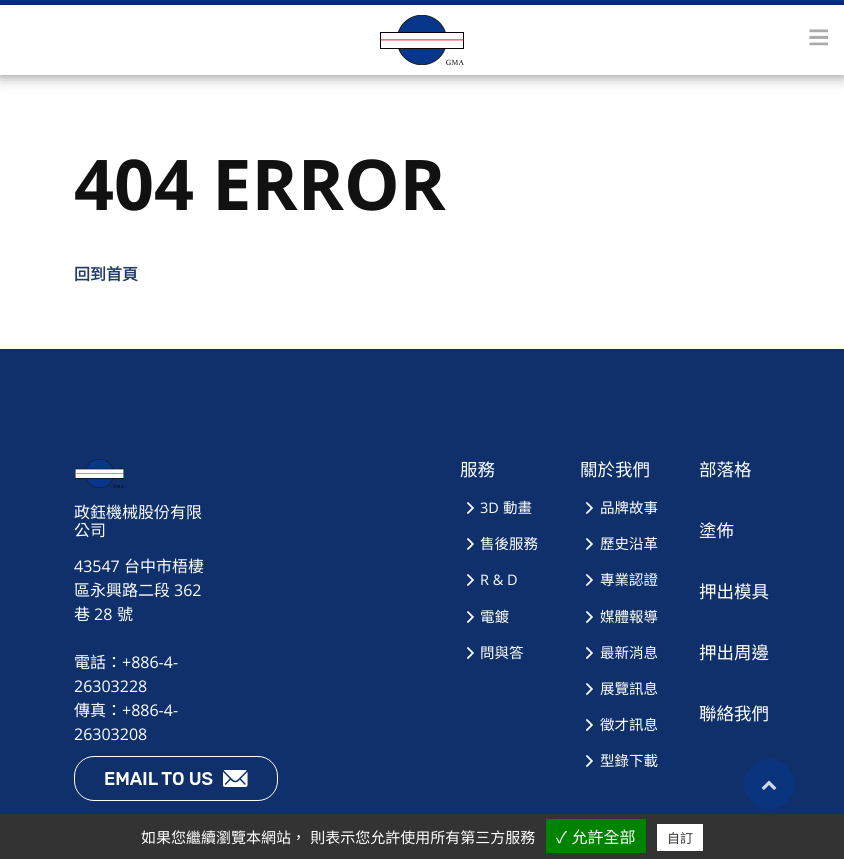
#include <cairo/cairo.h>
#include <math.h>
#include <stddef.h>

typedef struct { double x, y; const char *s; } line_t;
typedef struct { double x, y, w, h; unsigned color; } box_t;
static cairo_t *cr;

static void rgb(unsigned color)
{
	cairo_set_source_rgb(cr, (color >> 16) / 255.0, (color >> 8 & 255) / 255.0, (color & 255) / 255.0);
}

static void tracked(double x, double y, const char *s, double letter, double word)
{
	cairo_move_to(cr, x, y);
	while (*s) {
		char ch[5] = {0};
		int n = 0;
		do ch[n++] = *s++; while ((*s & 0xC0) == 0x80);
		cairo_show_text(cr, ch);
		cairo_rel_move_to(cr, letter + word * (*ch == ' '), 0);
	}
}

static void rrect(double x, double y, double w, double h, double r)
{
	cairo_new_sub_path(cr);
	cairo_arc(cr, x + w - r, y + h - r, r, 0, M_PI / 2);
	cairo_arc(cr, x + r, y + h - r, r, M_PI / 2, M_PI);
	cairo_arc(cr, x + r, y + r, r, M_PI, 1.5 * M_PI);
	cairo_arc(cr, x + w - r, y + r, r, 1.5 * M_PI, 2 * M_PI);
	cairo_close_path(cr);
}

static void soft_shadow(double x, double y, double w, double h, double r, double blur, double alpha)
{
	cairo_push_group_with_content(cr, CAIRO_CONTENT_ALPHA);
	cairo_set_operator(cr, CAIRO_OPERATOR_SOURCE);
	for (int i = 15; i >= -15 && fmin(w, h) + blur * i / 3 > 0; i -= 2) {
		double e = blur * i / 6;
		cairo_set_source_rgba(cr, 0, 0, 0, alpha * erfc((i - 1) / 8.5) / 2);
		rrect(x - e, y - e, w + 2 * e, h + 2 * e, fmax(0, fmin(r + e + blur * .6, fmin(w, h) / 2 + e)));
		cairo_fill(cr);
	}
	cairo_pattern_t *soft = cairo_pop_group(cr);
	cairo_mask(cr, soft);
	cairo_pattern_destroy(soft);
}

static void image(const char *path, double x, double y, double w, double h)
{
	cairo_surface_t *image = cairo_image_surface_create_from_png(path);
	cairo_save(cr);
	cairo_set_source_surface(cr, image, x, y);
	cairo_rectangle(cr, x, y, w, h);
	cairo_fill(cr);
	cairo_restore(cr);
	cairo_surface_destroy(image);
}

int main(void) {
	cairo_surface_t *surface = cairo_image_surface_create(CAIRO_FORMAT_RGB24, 844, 859);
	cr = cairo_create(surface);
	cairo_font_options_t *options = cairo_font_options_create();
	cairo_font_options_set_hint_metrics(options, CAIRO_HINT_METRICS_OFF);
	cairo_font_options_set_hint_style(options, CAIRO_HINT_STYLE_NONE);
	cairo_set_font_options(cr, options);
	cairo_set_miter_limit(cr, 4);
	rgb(0xffffff);
	cairo_paint(cr);
	rgb(0x07378b);
	cairo_rectangle(cr, 0, 0, 844, 5);
	cairo_fill(cr);
	cairo_save(cr);
	cairo_set_fill_rule(cr, CAIRO_FILL_RULE_EVEN_ODD);
	cairo_new_path(cr);
	cairo_move_to(cr, 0, 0);
	cairo_line_to(cr, 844, 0);
	cairo_line_to(cr, 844, 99);
	cairo_line_to(cr, 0, 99);
	cairo_close_path(cr);
	cairo_move_to(cr, 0, 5);
	cairo_line_to(cr, 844, 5);
	cairo_line_to(cr, 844, 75);
	cairo_line_to(cr, 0, 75);
	cairo_close_path(cr);
	cairo_clip(cr);
	rgb(0x000000);
	soft_shadow(0, 5, 844, 70, 0, 7.5, 0.5);
	cairo_restore(cr);
	image("img/1.png", 380, 15, 84, 50);
	image("img/2.png", 809, 29, 19, 17);
	rgb(0x0f306b);
	cairo_rectangle(cr, 0, 349, 844, 465);
	cairo_fill(cr);
	image("img/3.png", 75, 459, 49, 29);
	image("img/4.png", 74, 756, 204, 45);
	image("img/5.png", 467, 502, 7, 12);
	image("img/5.png", 467, 538, 7, 12);
	image("img/5.png", 467, 574, 7, 12);
	image("img/5.png", 467, 611, 7, 12);
	image("img/5.png", 467, 647, 7, 12);
	image("img/5.png", 586, 502, 7, 12);
	image("img/5.png", 586, 538, 7, 12);
	image("img/5.png", 586, 574, 7, 12);
	image("img/5.png", 586, 611, 7, 12);
	image("img/5.png", 586, 647, 7, 12);
	image("img/5.png", 586, 683, 7, 12);
	image("img/5.png", 586, 719, 7, 12);
	image("img/5.png", 586, 755, 7, 12);
	rgb(0x0a357e);
	cairo_arc(cr, 769, 784, 25, 0, 2 * M_PI);
	cairo_fill(cr);
	image("img/6.png", 761, 780, 16, 10);
	{
		static const box_t items[] = {
			{0, 814, 844, 45, 0x333333},
			{546, 819, 100, 34, 0x008300},
			{657, 824, 46, 27, 0xffffff},
		};
		for (size_t i = 0; i < sizeof items / sizeof *items; i++) {
			rgb(items[i].color);
			cairo_rectangle(cr, items[i].x, items[i].y, items[i].w, items[i].h);
			cairo_fill(cr);
		}
	}
	cairo_select_font_face(cr, "Open Sans", CAIRO_FONT_SLANT_NORMAL, CAIRO_FONT_WEIGHT_BOLD);
	cairo_set_font_size(cr, 70);
	rgb(0x111111);
	cairo_move_to(cr, 74, 210);
	cairo_show_text(cr, "404 ERROR");
	cairo_select_font_face(cr, "Noto Sans CJK TC", CAIRO_FONT_SLANT_NORMAL, CAIRO_FONT_WEIGHT_BOLD);
	cairo_set_font_size(cr, 16);
	rgb(0x223c6a);
	cairo_move_to(cr, 74, 280);
	cairo_show_text(cr, "回到首頁");
	cairo_select_font_face(cr, "Noto Sans CJK TC", CAIRO_FONT_SLANT_NORMAL, CAIRO_FONT_WEIGHT_NORMAL);
	rgb(0xffffff);
	cairo_move_to(cr, 74, 518);
	cairo_show_text(cr, "政鈺機械股份有限");
	cairo_move_to(cr, 74, 536);
	cairo_show_text(cr, "公司");
	cairo_select_font_face(cr, "Open Sans", CAIRO_FONT_SLANT_NORMAL, CAIRO_FONT_WEIGHT_NORMAL);
	cairo_move_to(cr, 74, 572);
	cairo_show_text(cr, "43547");
	cairo_select_font_face(cr, "Noto Sans CJK TC", CAIRO_FONT_SLANT_NORMAL, CAIRO_FONT_WEIGHT_NORMAL);
	cairo_move_to(cr, 124, 572);
	cairo_show_text(cr, "台中市梧棲");
	cairo_move_to(cr, 74, 596);
	cairo_show_text(cr, "區永興路二段");
	cairo_select_font_face(cr, "Open Sans", CAIRO_FONT_SLANT_NORMAL, CAIRO_FONT_WEIGHT_NORMAL);
	cairo_move_to(cr, 174, 596);
	cairo_show_text(cr, "362");
	cairo_select_font_face(cr, "Noto Sans CJK TC", CAIRO_FONT_SLANT_NORMAL, CAIRO_FONT_WEIGHT_NORMAL);
	cairo_move_to(cr, 74, 620);
	cairo_show_text(cr, "巷");
	cairo_select_font_face(cr, "Open Sans", CAIRO_FONT_SLANT_NORMAL, CAIRO_FONT_WEIGHT_NORMAL);
	cairo_move_to(cr, 94, 620);
	cairo_show_text(cr, "28");
	cairo_select_font_face(cr, "Noto Sans CJK TC", CAIRO_FONT_SLANT_NORMAL, CAIRO_FONT_WEIGHT_NORMAL);
	cairo_move_to(cr, 117, 620);
	cairo_show_text(cr, "號");
	cairo_move_to(cr, 74, 668);
	cairo_show_text(cr, "電話：");
	cairo_select_font_face(cr, "Open Sans", CAIRO_FONT_SLANT_NORMAL, CAIRO_FONT_WEIGHT_NORMAL);
	cairo_move_to(cr, 122, 668);
	cairo_show_text(cr, "+886-4-");
	cairo_move_to(cr, 74, 692);
	cairo_show_text(cr, "26303228");
	cairo_select_font_face(cr, "Noto Sans CJK TC", CAIRO_FONT_SLANT_NORMAL, CAIRO_FONT_WEIGHT_NORMAL);
	cairo_move_to(cr, 74, 716);
	cairo_show_text(cr, "傳真：");
	cairo_select_font_face(cr, "Open Sans", CAIRO_FONT_SLANT_NORMAL, CAIRO_FONT_WEIGHT_NORMAL);
	cairo_move_to(cr, 122, 716);
	cairo_show_text(cr, "+886-4-");
	cairo_move_to(cr, 74, 740);
	cairo_show_text(cr, "26303208");
	cairo_select_font_face(cr, "Noto Sans CJK TC", CAIRO_FONT_SLANT_NORMAL, CAIRO_FONT_WEIGHT_NORMAL);
	cairo_set_font_size(cr, 17.5);
	cairo_move_to(cr, 460, 476);
	cairo_show_text(cr, "服務");
	cairo_select_font_face(cr, "Open Sans", CAIRO_FONT_SLANT_NORMAL, CAIRO_FONT_WEIGHT_NORMAL);
	cairo_set_font_size(cr, 14.5);
	cairo_move_to(cr, 480, 513);
	cairo_show_text(cr, "3D");
	cairo_select_font_face(cr, "Noto Sans CJK TC", CAIRO_FONT_SLANT_NORMAL, CAIRO_FONT_WEIGHT_NORMAL);
	cairo_move_to(cr, 503, 513);
	cairo_show_text(cr, "動畫");
	cairo_move_to(cr, 480, 549);
	cairo_show_text(cr, "售後服務");
	cairo_select_font_face(cr, "Open Sans", CAIRO_FONT_SLANT_NORMAL, CAIRO_FONT_WEIGHT_NORMAL);
	cairo_move_to(cr, 480, 585);
	cairo_show_text(cr, "R & D");
	cairo_select_font_face(cr, "Noto Sans CJK TC", CAIRO_FONT_SLANT_NORMAL, CAIRO_FONT_WEIGHT_NORMAL);
	cairo_move_to(cr, 480, 622);
	cairo_show_text(cr, "電鍍");
	cairo_move_to(cr, 480, 658);
	cairo_show_text(cr, "問與答");
	cairo_set_font_size(cr, 17.5);
	cairo_move_to(cr, 580, 476);
	cairo_show_text(cr, "關於我們");
	cairo_set_font_size(cr, 14.5);
	{
		static const line_t items[] = {
			{600, 513, "品牌故事"},
			{600, 549, "歷史沿革"},
			{600, 585, "專業認證"},
			{600, 622, "媒體報導"},
			{600, 658, "最新消息"},
			{600, 694, "展覽訊息"},
			{600, 730, "徵才訊息"},
			{600, 766, "型錄下載"},
		};
		for (size_t i = 0; i < sizeof items / sizeof *items; i++) {
			cairo_move_to(cr, items[i].x, items[i].y);
			cairo_show_text(cr, items[i].s);
		}
	}
	cairo_set_font_size(cr, 17.5);
	{
		static const line_t items[] = {
			{699, 476, "部落格"},
			{699, 537, "塗佈"},
			{699, 598, "押出模具"},
			{699, 659, "押出周邊"},
			{699, 720, "聯絡我們"},
		};
		for (size_t i = 0; i < sizeof items / sizeof *items; i++) {
			cairo_move_to(cr, items[i].x, items[i].y);
			cairo_show_text(cr, items[i].s);
		}
	}
	cairo_set_font_size(cr, 15);
	tracked(141, 843, "如果您繼續瀏覽本網站， 則表示您允許使用所有第三方服務", 0, 1);
	cairo_set_font_size(cr, 16);
	tracked(556, 843, "✓ 允許全部", 0, 1);
	cairo_set_font_size(cr, 13);
	rgb(0x333333);
	cairo_move_to(cr, 667, 843);
	cairo_show_text(cr, "自訂");
	cairo_surface_write_to_png(surface, "page.png");
	cairo_font_options_destroy(options);
	cairo_destroy(cr);
	cairo_surface_destroy(surface);
	return 0;
}
